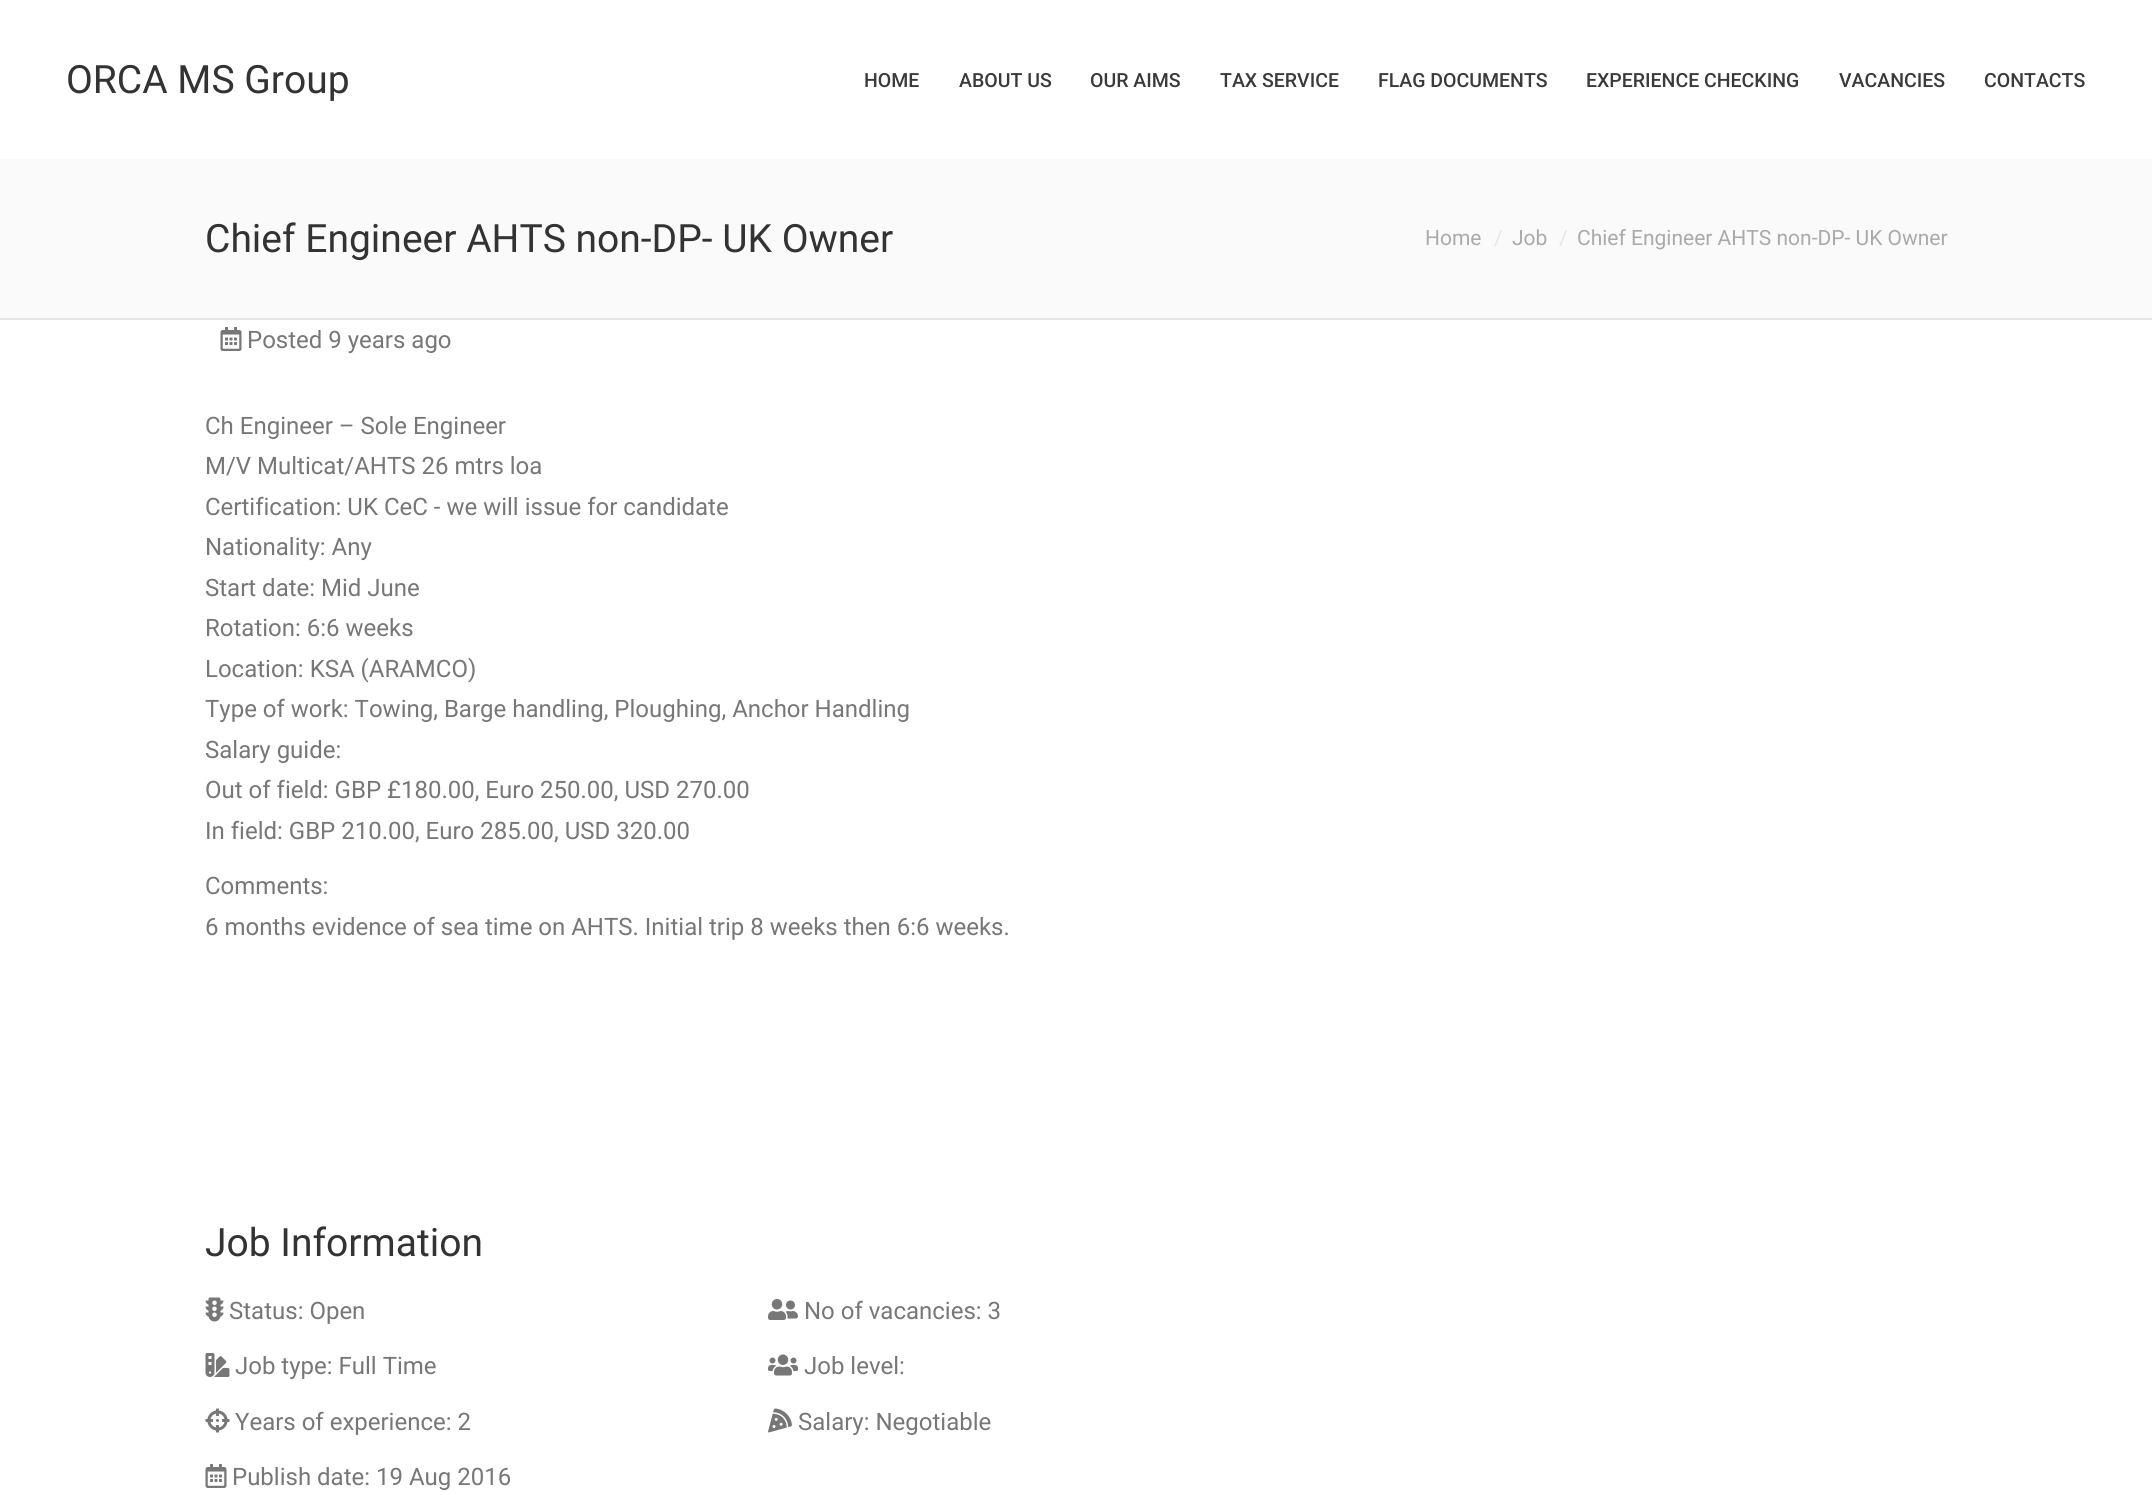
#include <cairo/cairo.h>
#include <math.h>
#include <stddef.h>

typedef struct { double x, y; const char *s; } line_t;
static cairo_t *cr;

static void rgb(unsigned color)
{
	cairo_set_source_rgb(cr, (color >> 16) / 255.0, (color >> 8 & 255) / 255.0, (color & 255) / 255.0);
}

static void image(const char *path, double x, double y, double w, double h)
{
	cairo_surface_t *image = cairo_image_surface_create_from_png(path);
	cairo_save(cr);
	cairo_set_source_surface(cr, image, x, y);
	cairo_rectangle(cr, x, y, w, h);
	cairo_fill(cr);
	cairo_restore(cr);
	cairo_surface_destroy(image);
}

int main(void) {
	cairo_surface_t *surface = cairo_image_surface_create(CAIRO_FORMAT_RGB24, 2152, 1495);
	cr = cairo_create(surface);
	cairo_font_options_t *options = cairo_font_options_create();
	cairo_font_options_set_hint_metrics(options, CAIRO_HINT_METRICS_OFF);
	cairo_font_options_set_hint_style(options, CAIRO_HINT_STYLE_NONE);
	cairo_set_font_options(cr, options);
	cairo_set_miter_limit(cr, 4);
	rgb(0xffffff);
	cairo_paint(cr);
	rgb(0xfafafa);
	cairo_rectangle(cr, 0, 159, 2152, 159);
	cairo_fill(cr);
	rgb(0xe6e6e6);
	cairo_rectangle(cr, 0, 318, 2152, 2);
	cairo_fill(cr);
	image("img/1.png", 220, 327, 22, 24);
	image("img/2.png", 205, 1297, 19, 25);
	image("img/3.png", 768, 1299, 30, 21);
	image("img/4.png", 205, 1353, 25, 24);
	image("img/5.png", 768, 1354, 30, 22);
	image("img/6.png", 205, 1408, 25, 25);
	image("img/7.png", 768, 1408, 24, 25);
	image("img/1.png", 205, 1464, 22, 24);
	cairo_select_font_face(cr, "Roboto", CAIRO_FONT_SLANT_NORMAL, CAIRO_FONT_WEIGHT_NORMAL);
	cairo_set_font_size(cr, 39);
	rgb(0x333333);
	cairo_move_to(cr, 66, 93);
	cairo_show_text(cr, "ORCA MS Group");
	cairo_select_font_face(cr, "Roboto Medium", CAIRO_FONT_SLANT_NORMAL, CAIRO_FONT_WEIGHT_NORMAL);
	cairo_set_font_size(cr, 19.5);
	rgb(0x3a3a3a);
	{
		static const line_t items[] = {
			{864, 87, "HOME"},
			{959, 87, "ABOUT US"},
			{1090, 87, "OUR AIMS"},
			{1220, 87, "TAX SERVICE"},
			{1378, 87, "FLAG DOCUMENTS"},
			{1586, 87, "EXPERIENCE CHECKING"},
			{1839, 87, "VACANCIES"},
			{1984, 87, "CONTACTS"},
		};
		for (size_t i = 0; i < sizeof items / sizeof *items; i++) {
			cairo_move_to(cr, items[i].x, items[i].y);
			cairo_show_text(cr, items[i].s);
		}
	}
	cairo_select_font_face(cr, "Roboto", CAIRO_FONT_SLANT_NORMAL, CAIRO_FONT_WEIGHT_NORMAL);
	cairo_set_font_size(cr, 39);
	rgb(0x333333);
	cairo_move_to(cr, 205, 252);
	cairo_show_text(cr, "Chief Engineer AHTS non-DP- UK Owner");
	cairo_set_font_size(cr, 21);
	rgb(0xaaaaaa);
	cairo_move_to(cr, 1425, 245);
	cairo_show_text(cr, "Home");
	rgb(0xe6e6e6);
	cairo_move_to(cr, 1494, 245);
	cairo_show_text(cr, "/");
	rgb(0xaaaaaa);
	cairo_move_to(cr, 1512, 245);
	cairo_show_text(cr, "Job");
	rgb(0xe6e6e6);
	cairo_move_to(cr, 1559, 245);
	cairo_show_text(cr, "/");
	rgb(0xaaaaaa);
	cairo_move_to(cr, 1577, 245);
	cairo_show_text(cr, "Chief Engineer AHTS non-DP- UK Owner");
	cairo_set_font_size(cr, 24);
	rgb(0x777777);
	{
		static const line_t items[] = {
			{247, 348, "Posted 9 years ago"},
			{205, 434, "Ch Engineer – Sole Engineer"},
			{205, 474, "M/V Multicat/AHTS 26 mtrs loa"},
			{205, 515, "Certification: UK CeC - we will issue for candidate"},
			{205, 555, "Nationality: Any"},
			{205, 596, "Start date: Mid June"},
			{205, 636, "Rotation: 6:6 weeks"},
			{205, 677, "Location: KSA (ARAMCO)"},
			{205, 717, "Type of work: Towing, Barge handling, Ploughing, Anchor Handling"},
			{205, 758, "Salary guide:"},
			{205, 798, "Out of field: GBP £180.00, Euro 250.00, USD 270.00"},
			{205, 839, "In field: GBP 210.00, Euro 285.00, USD 320.00"},
			{205, 894, "Comments:"},
			{205, 935, "6 months evidence of sea time on AHTS. Initial trip 8 weeks then 6:6 weeks."},
		};
		for (size_t i = 0; i < sizeof items / sizeof *items; i++) {
			cairo_move_to(cr, items[i].x, items[i].y);
			cairo_show_text(cr, items[i].s);
		}
	}
	cairo_set_font_size(cr, 39);
	rgb(0x333333);
	cairo_move_to(cr, 205, 1256);
	cairo_show_text(cr, "Job Information");
	cairo_set_font_size(cr, 24);
	rgb(0x777777);
	{
		static const line_t items[] = {
			{229, 1319, "Status: Open"},
			{804, 1319, "No of vacancies: 3"},
			{235, 1374, "Job type: Full Time"},
			{804, 1374, "Job level:"},
			{235, 1430, "Years of experience: 2"},
			{798, 1430, "Salary: Negotiable"},
			{232, 1485, "Publish date: 19 Aug 2016"},
		};
		for (size_t i = 0; i < sizeof items / sizeof *items; i++) {
			cairo_move_to(cr, items[i].x, items[i].y);
			cairo_show_text(cr, items[i].s);
		}
	}
	cairo_surface_write_to_png(surface, "page.png");
	cairo_font_options_destroy(options);
	cairo_destroy(cr);
	cairo_surface_destroy(surface);
	return 0;
}
